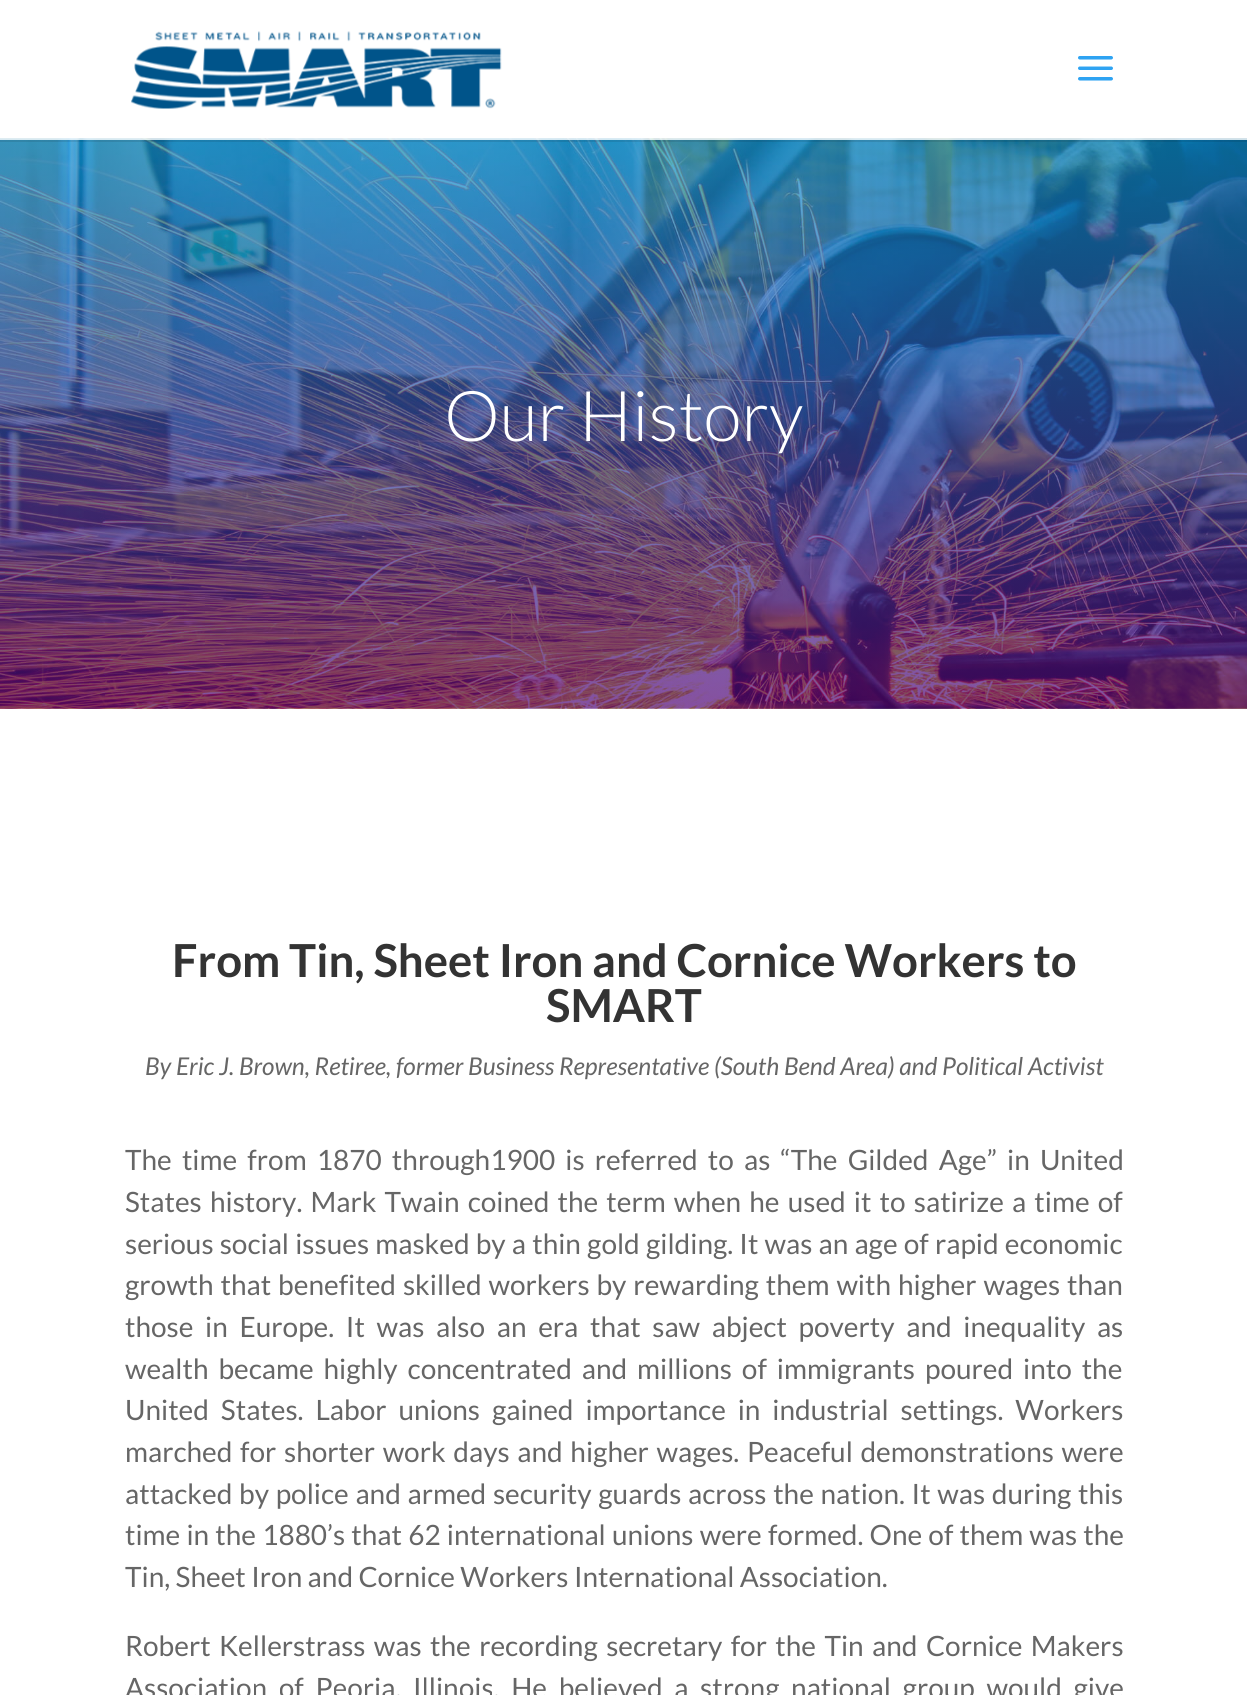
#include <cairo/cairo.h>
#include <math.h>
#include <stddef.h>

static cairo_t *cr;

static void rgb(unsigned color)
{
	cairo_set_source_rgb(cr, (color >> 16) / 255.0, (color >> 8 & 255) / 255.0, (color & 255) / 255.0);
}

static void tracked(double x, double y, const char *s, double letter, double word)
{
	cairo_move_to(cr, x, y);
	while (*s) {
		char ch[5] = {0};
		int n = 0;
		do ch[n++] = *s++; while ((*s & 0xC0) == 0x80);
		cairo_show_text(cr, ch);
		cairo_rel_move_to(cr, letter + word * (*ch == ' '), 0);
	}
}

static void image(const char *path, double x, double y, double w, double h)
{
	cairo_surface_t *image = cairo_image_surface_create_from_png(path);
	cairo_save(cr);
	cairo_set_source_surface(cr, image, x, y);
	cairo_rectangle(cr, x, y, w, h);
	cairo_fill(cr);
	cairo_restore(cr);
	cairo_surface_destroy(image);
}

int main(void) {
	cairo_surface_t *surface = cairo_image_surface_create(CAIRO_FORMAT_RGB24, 1247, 1695);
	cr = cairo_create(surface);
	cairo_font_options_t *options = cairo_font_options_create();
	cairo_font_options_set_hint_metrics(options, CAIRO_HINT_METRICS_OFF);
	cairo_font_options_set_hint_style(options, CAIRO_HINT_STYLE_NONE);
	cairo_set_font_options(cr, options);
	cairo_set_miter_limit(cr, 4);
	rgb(0xffffff);
	cairo_paint(cr);
	image("img/3.png", 0, 138, 1247, 571);
	cairo_set_source_rgba(cr, 0, 0, 0, 0.1);
	cairo_new_path(cr);
	cairo_move_to(cr, 0, 140);
	cairo_line_to(cr, 0, 142);
	cairo_line_to(cr, 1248, 142);
	cairo_line_to(cr, 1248, 2);
	cairo_line_to(cr, 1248, 140);
	cairo_close_path(cr);
	cairo_fill(cr);
	cairo_set_source_rgba(cr, 1, 1, 1, 0.8);
	cairo_rectangle(cr, 0, 138, 1247, 2);
	cairo_fill(cr);
	image("img/1.png", 131, 31, 371, 78);
	image("img/2.png", 1078, 56, 35, 25);
	cairo_select_font_face(cr, "Lato Light", CAIRO_FONT_SLANT_NORMAL, CAIRO_FONT_WEIGHT_NORMAL);
	cairo_set_font_size(cr, 70);
	rgb(0xffffff);
	cairo_move_to(cr, 444, 441);
	cairo_show_text(cr, "Our History");
	cairo_select_font_face(cr, "Lato", CAIRO_FONT_SLANT_NORMAL, CAIRO_FONT_WEIGHT_BOLD);
	cairo_set_font_size(cr, 45.5);
	rgb(0x333333);
	cairo_move_to(cr, 172, 977);
	cairo_show_text(cr, "From Tin, Sheet Iron and Cornice Workers to");
	cairo_move_to(cr, 546, 1022);
	cairo_show_text(cr, "SMART");
	cairo_select_font_face(cr, "Lato", CAIRO_FONT_SLANT_ITALIC, CAIRO_FONT_WEIGHT_NORMAL);
	cairo_set_font_size(cr, 24.5);
	rgb(0x666666);
	cairo_move_to(cr, 145, 1075);
	cairo_show_text(cr, "By Eric J. Brown, Retiree, former Business Representative (South Bend Area) and Political Activist");
	cairo_select_font_face(cr, "Lato", CAIRO_FONT_SLANT_NORMAL, CAIRO_FONT_WEIGHT_NORMAL);
	cairo_set_font_size(cr, 28);
	tracked(125, 1170, "The time from 1870 through1900 is referred to as “The Gilded Age” in United", 0, 4.75);
	tracked(125, 1212, "States history. Mark Twain coined the term when he used it to satirize a time of", 0, 2.75);
	tracked(125, 1254, "serious social issues masked by a thin gold gilding. It was an age of rapid economic", 0, 0.75);
	tracked(125, 1295, "growth that benefited skilled workers by rewarding them with higher wages than", 0, 1.5);
	tracked(125, 1337, "those in Europe. It was also an era that saw abject poverty and inequality as", 0, 6.25);
	tracked(125, 1379, "wealth became highly concentrated and millions of immigrants poured into the", 0, 4.5);
	tracked(125, 1420, "United States. Labor unions gained importance in industrial settings. Workers", 0, 6.5);
	tracked(125, 1462, "marched for shorter work days and higher wages. Peaceful demonstrations were", 0, 2.25);
	tracked(125, 1504, "attacked by police and armed security guards across the nation. It was during this", 0, 1.25);
	tracked(125, 1545, "time in the 1880’s that 62 international unions were formed. One of them was the", 0, 0.75);
	cairo_move_to(cr, 125, 1587);
	cairo_show_text(cr, "Tin, Sheet Iron and Cornice Workers International Association.");
	tracked(125, 1656, "Robert Kellerstrass was the recording secretary for the Tin and Cornice Makers", 0, 3);
	tracked(125, 1698, "Association of Peoria, Illinois. He believed a strong national group would give", 0, 6.25);
	cairo_surface_write_to_png(surface, "page.png");
	cairo_font_options_destroy(options);
	cairo_destroy(cr);
	cairo_surface_destroy(surface);
	return 0;
}
